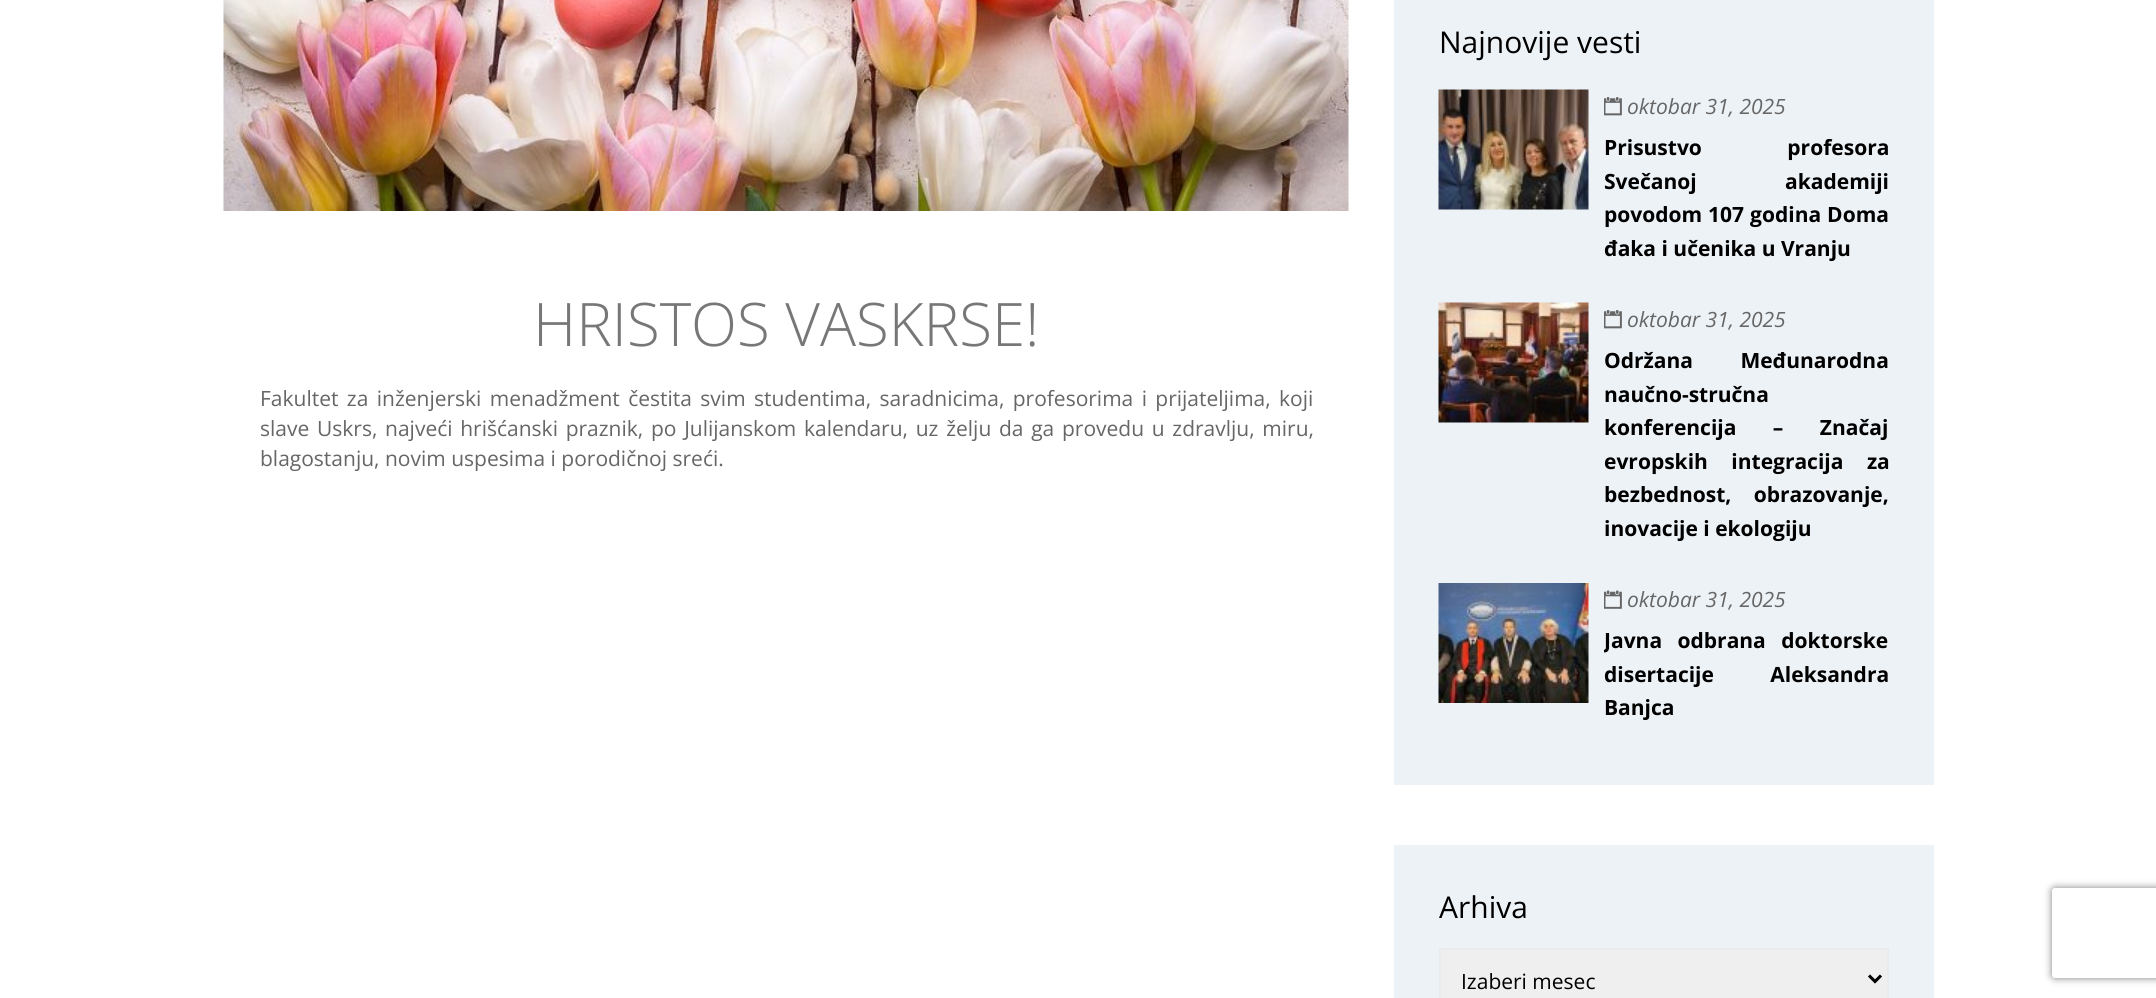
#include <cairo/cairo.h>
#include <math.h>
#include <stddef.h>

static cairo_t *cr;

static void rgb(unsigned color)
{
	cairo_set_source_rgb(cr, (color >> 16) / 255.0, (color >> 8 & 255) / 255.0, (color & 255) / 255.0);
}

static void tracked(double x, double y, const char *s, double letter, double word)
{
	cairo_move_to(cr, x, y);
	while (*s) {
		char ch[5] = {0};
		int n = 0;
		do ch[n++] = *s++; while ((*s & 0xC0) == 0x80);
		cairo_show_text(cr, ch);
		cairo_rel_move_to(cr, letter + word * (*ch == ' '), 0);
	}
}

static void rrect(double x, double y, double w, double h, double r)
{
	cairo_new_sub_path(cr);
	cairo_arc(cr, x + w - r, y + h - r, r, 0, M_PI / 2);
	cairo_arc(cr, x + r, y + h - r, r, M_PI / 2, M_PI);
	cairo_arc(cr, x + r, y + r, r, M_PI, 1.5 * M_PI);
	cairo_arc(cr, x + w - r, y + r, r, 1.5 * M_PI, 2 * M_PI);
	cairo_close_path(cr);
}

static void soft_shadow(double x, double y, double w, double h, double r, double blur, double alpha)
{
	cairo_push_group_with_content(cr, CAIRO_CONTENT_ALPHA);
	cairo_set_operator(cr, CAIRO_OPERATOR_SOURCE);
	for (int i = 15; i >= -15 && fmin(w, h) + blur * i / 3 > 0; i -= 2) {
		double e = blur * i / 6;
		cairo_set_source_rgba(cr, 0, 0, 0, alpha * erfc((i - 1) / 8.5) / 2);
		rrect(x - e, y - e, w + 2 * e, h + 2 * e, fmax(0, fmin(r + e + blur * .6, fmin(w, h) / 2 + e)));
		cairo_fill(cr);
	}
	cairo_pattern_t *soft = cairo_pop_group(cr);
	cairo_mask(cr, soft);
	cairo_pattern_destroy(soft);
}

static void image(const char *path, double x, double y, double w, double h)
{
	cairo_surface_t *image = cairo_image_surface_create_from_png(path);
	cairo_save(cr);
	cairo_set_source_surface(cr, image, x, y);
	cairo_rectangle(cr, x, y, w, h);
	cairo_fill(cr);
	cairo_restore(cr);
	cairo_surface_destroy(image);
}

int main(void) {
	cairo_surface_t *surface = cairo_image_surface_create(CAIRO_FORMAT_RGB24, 2156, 998);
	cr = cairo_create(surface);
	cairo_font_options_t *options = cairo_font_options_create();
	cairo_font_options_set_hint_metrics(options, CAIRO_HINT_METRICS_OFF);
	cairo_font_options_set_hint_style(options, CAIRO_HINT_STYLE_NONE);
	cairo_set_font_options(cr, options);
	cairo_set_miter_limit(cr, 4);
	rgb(0xffffff);
	cairo_paint(cr);
	image("img/1.png", 223, 0, 1126, 211);
	rgb(0xedf2f6);
	cairo_rectangle(cr, 1394, 0, 540, 785);
	cairo_fill(cr);
	image("img/2.png", 1438, 89, 151, 121);
	image("img/3.png", 1604, 97, 18, 19);
	image("img/4.png", 1438, 302, 151, 121);
	image("img/3.png", 1604, 310, 18, 19);
	image("img/5.png", 1438, 583, 151, 120);
	image("img/6.png", 1604, 590, 18, 19);
	cairo_rectangle(cr, 1394, 845, 540, 153);
	cairo_fill(cr);
	rgb(0xefefef);
	cairo_rectangle(cr, 1440, 949, 448, 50);
	cairo_fill_preserve(cr);
	rgb(0xe9ebed);
	cairo_stroke(cr);
	cairo_new_path(cr);
	cairo_move_to(cr, 1869, 975.5);
	cairo_line_to(cr, 1875, 981.5);
	cairo_line_to(cr, 1881, 975.5);
	rgb(0x000000);
	cairo_set_line_width(cr, 3);
	cairo_stroke(cr);
	cairo_save(cr);
	cairo_set_fill_rule(cr, CAIRO_FILL_RULE_EVEN_ODD);
	cairo_new_path(cr);
	cairo_move_to(cr, 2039, 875);
	cairo_line_to(cr, 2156, 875);
	cairo_line_to(cr, 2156, 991);
	cairo_line_to(cr, 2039, 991);
	cairo_close_path(cr);
	cairo_move_to(cr, 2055, 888);
	cairo_line_to(cr, 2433, 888);
	cairo_curve_to(cr, 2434.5, 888, 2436, 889.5, 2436, 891);
	cairo_line_to(cr, 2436, 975);
	cairo_curve_to(cr, 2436, 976.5, 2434.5, 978, 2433, 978);
	cairo_line_to(cr, 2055, 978);
	cairo_curve_to(cr, 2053.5, 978, 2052, 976.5, 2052, 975);
	cairo_line_to(cr, 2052, 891);
	cairo_curve_to(cr, 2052, 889.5, 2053.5, 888, 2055, 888);
	cairo_close_path(cr);
	cairo_clip(cr);
	rgb(0x808080);
	soft_shadow(2052, 888, 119, 90, 3, 4, 1);
	cairo_restore(cr);
	cairo_select_font_face(cr, "Open Sans Light", CAIRO_FONT_SLANT_NORMAL, CAIRO_FONT_WEIGHT_NORMAL);
	cairo_set_font_size(cr, 60);
	rgb(0x777777);
	cairo_move_to(cr, 533, 346);
	cairo_show_text(cr, "HRISTOS VASKRSE!");
	cairo_select_font_face(cr, "Open Sans", CAIRO_FONT_SLANT_NORMAL, CAIRO_FONT_WEIGHT_NORMAL);
	cairo_set_font_size(cr, 21);
	rgb(0x666666);
	tracked(260, 406, "Fakultet za inženjerski menadžment čestita svim studentima, saradnicima, profesorima i prijateljima, koji", 0, 2.9);
	tracked(260, 436, "slave Uskrs, najveći hrišćanski praznik, po Julijanskom kalendaru, uz želju da ga provedu u zdravlju, miru,", 0, 2.25);
	cairo_move_to(cr, 260, 466);
	cairo_show_text(cr, "blagostanju, novim uspesima i porodičnoj sreći.");
	cairo_set_font_size(cr, 30);
	rgb(0x000000);
	cairo_move_to(cr, 1439, 53);
	cairo_show_text(cr, "Najnovije vesti");
	cairo_select_font_face(cr, "Open Sans", CAIRO_FONT_SLANT_ITALIC, CAIRO_FONT_WEIGHT_NORMAL);
	cairo_set_font_size(cr, 21);
	rgb(0x666666);
	cairo_move_to(cr, 1627, 114);
	cairo_show_text(cr, "oktobar 31, 2025");
	cairo_select_font_face(cr, "Open Sans", CAIRO_FONT_SLANT_NORMAL, CAIRO_FONT_WEIGHT_BOLD);
	rgb(0x000000);
	tracked(1604, 155, "Prisustvo profesora", 0, 80);
	tracked(1604, 189, "Svečanoj akademiji", 0, 83);
	tracked(1604, 222, "povodom 107 godina Doma", 0, 0.5);
	cairo_move_to(cr, 1604, 256);
	cairo_show_text(cr, "đaka i učenika u Vranju");
	cairo_select_font_face(cr, "Open Sans", CAIRO_FONT_SLANT_ITALIC, CAIRO_FONT_WEIGHT_NORMAL);
	rgb(0x666666);
	cairo_move_to(cr, 1627, 327);
	cairo_show_text(cr, "oktobar 31, 2025");
	cairo_select_font_face(cr, "Open Sans", CAIRO_FONT_SLANT_NORMAL, CAIRO_FONT_WEIGHT_BOLD);
	rgb(0x000000);
	tracked(1604, 368, "Održana Međunarodna", 0, 42);
	cairo_move_to(cr, 1604, 402);
	cairo_show_text(cr, "naučno-stručna");
	tracked(1604, 435, "konferencija – Značaj", 0, 31);
	tracked(1604, 469, "evropskih integracija za", 0, 18);
	tracked(1604, 502, "bezbednost, obrazovanje,", 0, 17);
	cairo_move_to(cr, 1604, 536);
	cairo_show_text(cr, "inovacije i ekologiju");
	cairo_select_font_face(cr, "Open Sans", CAIRO_FONT_SLANT_ITALIC, CAIRO_FONT_WEIGHT_NORMAL);
	rgb(0x666666);
	cairo_move_to(cr, 1627, 607);
	cairo_show_text(cr, "oktobar 31, 2025");
	cairo_save(cr);
	cairo_rectangle(cr, 1604, 624, 285, 101);
	cairo_clip(cr);
	cairo_select_font_face(cr, "Open Sans", CAIRO_FONT_SLANT_NORMAL, CAIRO_FONT_WEIGHT_BOLD);
	rgb(0x000000);
	tracked(1604, 648, "Javna odbrana doktorske", 0, 10);
	cairo_restore(cr);
	cairo_select_font_face(cr, "Open Sans", CAIRO_FONT_SLANT_NORMAL, CAIRO_FONT_WEIGHT_BOLD);
	rgb(0x000000);
	tracked(1604, 682, "disertacije Aleksandra", 0, 51);
	cairo_move_to(cr, 1604, 715);
	cairo_show_text(cr, "Banjca");
	cairo_select_font_face(cr, "Open Sans", CAIRO_FONT_SLANT_NORMAL, CAIRO_FONT_WEIGHT_NORMAL);
	cairo_set_font_size(cr, 30);
	cairo_move_to(cr, 1439, 918);
	cairo_show_text(cr, "Arhiva");
	cairo_set_font_size(cr, 21);
	cairo_move_to(cr, 1461, 989);
	cairo_show_text(cr, "Izaberi mesec");
	cairo_surface_write_to_png(surface, "page.png");
	cairo_font_options_destroy(options);
	cairo_destroy(cr);
	cairo_surface_destroy(surface);
	return 0;
}
